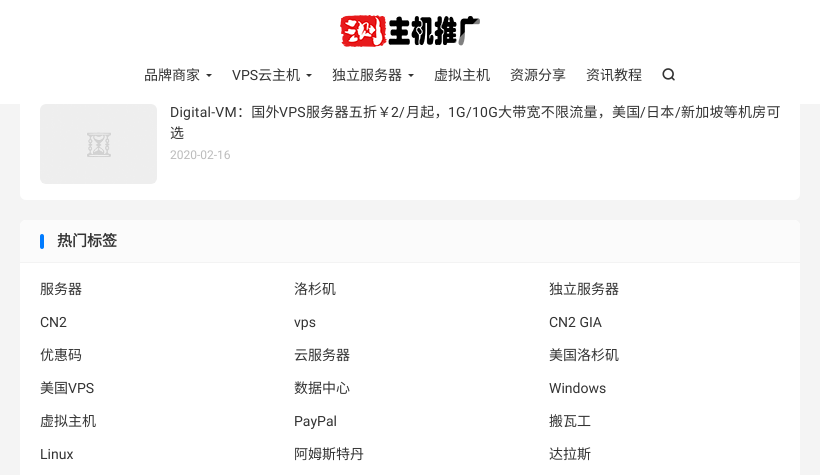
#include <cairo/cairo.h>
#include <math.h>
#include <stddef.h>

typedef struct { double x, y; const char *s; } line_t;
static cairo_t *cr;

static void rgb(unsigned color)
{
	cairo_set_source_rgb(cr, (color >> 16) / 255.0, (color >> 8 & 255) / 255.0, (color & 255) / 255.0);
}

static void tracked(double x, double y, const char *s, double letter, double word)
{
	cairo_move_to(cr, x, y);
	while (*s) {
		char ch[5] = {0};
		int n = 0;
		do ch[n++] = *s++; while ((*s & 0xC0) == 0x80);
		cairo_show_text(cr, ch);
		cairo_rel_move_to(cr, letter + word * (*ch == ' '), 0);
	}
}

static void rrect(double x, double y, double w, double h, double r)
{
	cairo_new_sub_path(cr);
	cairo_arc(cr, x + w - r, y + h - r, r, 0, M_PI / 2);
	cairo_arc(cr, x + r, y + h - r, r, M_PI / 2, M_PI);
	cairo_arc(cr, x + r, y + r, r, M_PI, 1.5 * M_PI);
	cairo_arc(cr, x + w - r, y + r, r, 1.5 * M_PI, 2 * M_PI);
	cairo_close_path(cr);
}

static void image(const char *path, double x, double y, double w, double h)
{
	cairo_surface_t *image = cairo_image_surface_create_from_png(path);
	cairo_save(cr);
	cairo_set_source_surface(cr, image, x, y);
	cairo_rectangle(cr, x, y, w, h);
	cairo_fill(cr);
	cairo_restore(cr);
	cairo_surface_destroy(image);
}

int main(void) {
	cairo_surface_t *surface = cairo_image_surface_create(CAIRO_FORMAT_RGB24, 820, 475);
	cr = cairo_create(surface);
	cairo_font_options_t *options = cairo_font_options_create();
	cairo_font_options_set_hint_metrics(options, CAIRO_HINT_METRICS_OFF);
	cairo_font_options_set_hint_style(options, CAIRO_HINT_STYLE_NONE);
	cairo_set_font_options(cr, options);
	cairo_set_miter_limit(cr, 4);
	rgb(0xf4f4f4);
	cairo_paint(cr);
	rgb(0xffffff);
	rrect(20, -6, 780, 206, 6);
	cairo_fill(cr);
	cairo_rectangle(cr, 0, 0, 820, 104);
	cairo_fill(cr);
	image("img/1.png", 340, 15, 140, 32);
	cairo_save(cr);
	cairo_rectangle(cr, 20, 15, 780, 32);
	cairo_clip(cr);
	cairo_set_source_rgba(cr, 1, 1, 1, 0.5);
	cairo_new_path(cr);
	cairo_move_to(cr, 428, 69);
	cairo_line_to(cr, 534, -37);
	cairo_line_to(cr, 542, -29);
	cairo_line_to(cr, 436, 77);
	cairo_close_path(cr);
	cairo_fill(cr);
	cairo_restore(cr);
	rgb(0x333333);
	cairo_new_path(cr);
	cairo_move_to(cr, 206, 74);
	cairo_line_to(cr, 212, 74);
	cairo_line_to(cr, 209, 77);
	cairo_close_path(cr);
	cairo_fill(cr);
	cairo_new_path(cr);
	cairo_move_to(cr, 306, 74);
	cairo_line_to(cr, 312, 74);
	cairo_line_to(cr, 309, 77);
	cairo_close_path(cr);
	cairo_fill(cr);
	cairo_new_path(cr);
	cairo_move_to(cr, 408, 74);
	cairo_line_to(cr, 414, 74);
	cairo_line_to(cr, 411, 77);
	cairo_close_path(cr);
	cairo_fill(cr);
	image("img/2.png", 662, 68, 13, 13);
	image("img/3.png", 40, 104, 117, 80);
	rgb(0xffffff);
	rrect(20, 220, 780, 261, 6);
	cairo_fill(cr);
	rgb(0xfbfbfb);
	cairo_new_path(cr);
	cairo_move_to(cr, 26, 220);
	cairo_line_to(cr, 794, 220);
	cairo_curve_to(cr, 797.5, 220, 800, 222.5, 800, 226);
	cairo_line_to(cr, 800, 263);
	cairo_line_to(cr, 20, 263);
	cairo_line_to(cr, 20, 226);
	cairo_curve_to(cr, 20, 222.5, 22.5, 220, 26, 220);
	cairo_close_path(cr);
	cairo_fill(cr);
	rgb(0xf3f3f3);
	cairo_rectangle(cr, 20, 262, 780, 1);
	cairo_fill(cr);
	rgb(0x007bff);
	rrect(40, 234, 4, 15, 2);
	cairo_fill(cr);
	cairo_select_font_face(cr, "Noto Sans CJK SC", CAIRO_FONT_SLANT_NORMAL, CAIRO_FONT_WEIGHT_NORMAL);
	cairo_set_font_size(cr, 14);
	rgb(0x333333);
	cairo_move_to(cr, 144, 80);
	cairo_show_text(cr, "品牌商家");
	cairo_select_font_face(cr, "Roboto", CAIRO_FONT_SLANT_NORMAL, CAIRO_FONT_WEIGHT_NORMAL);
	cairo_move_to(cr, 232, 80);
	cairo_show_text(cr, "VPS");
	cairo_select_font_face(cr, "Noto Sans CJK SC", CAIRO_FONT_SLANT_NORMAL, CAIRO_FONT_WEIGHT_NORMAL);
	{
		static const line_t items[] = {
			{258, 80, "云主机"},
			{332, 80, "独立服务器"},
			{434, 80, "虚拟主机"},
			{510, 80, "资源分享"},
			{586, 80, "资讯教程"},
		};
		for (size_t i = 0; i < sizeof items / sizeof *items; i++) {
			cairo_move_to(cr, items[i].x, items[i].y);
			cairo_show_text(cr, items[i].s);
		}
	}
	cairo_select_font_face(cr, "Roboto", CAIRO_FONT_SLANT_NORMAL, CAIRO_FONT_WEIGHT_NORMAL);
	tracked(170, 117, "Digital-VM", 0.25, 0);
	cairo_select_font_face(cr, "Noto Sans CJK SC", CAIRO_FONT_SLANT_NORMAL, CAIRO_FONT_WEIGHT_NORMAL);
	tracked(237, 117, "：国外", 0.25, 0);
	cairo_select_font_face(cr, "Roboto", CAIRO_FONT_SLANT_NORMAL, CAIRO_FONT_WEIGHT_NORMAL);
	tracked(279, 117, "VPS", 0.25, 0);
	cairo_select_font_face(cr, "Noto Sans CJK SC", CAIRO_FONT_SLANT_NORMAL, CAIRO_FONT_WEIGHT_NORMAL);
	tracked(306, 117, "服务器五折￥", 0.25, 0);
	cairo_select_font_face(cr, "Roboto", CAIRO_FONT_SLANT_NORMAL, CAIRO_FONT_WEIGHT_NORMAL);
	tracked(391, 117, "2/", 0.25, 0);
	cairo_select_font_face(cr, "Noto Sans CJK SC", CAIRO_FONT_SLANT_NORMAL, CAIRO_FONT_WEIGHT_NORMAL);
	tracked(406, 117, "月起，", 0.25, 0);
	cairo_select_font_face(cr, "Roboto", CAIRO_FONT_SLANT_NORMAL, CAIRO_FONT_WEIGHT_NORMAL);
	tracked(448, 117, "1G/10G", 0.25, 0);
	cairo_select_font_face(cr, "Noto Sans CJK SC", CAIRO_FONT_SLANT_NORMAL, CAIRO_FONT_WEIGHT_NORMAL);
	tracked(498, 117, "大带宽不限流量，美国", 0.25, 0);
	cairo_select_font_face(cr, "Roboto", CAIRO_FONT_SLANT_NORMAL, CAIRO_FONT_WEIGHT_NORMAL);
	tracked(640, 117, "/", 0.25, 0);
	cairo_select_font_face(cr, "Noto Sans CJK SC", CAIRO_FONT_SLANT_NORMAL, CAIRO_FONT_WEIGHT_NORMAL);
	tracked(646, 117, "日本", 0.25, 0);
	cairo_select_font_face(cr, "Roboto", CAIRO_FONT_SLANT_NORMAL, CAIRO_FONT_WEIGHT_NORMAL);
	tracked(675, 117, "/", 0.25, 0);
	cairo_select_font_face(cr, "Noto Sans CJK SC", CAIRO_FONT_SLANT_NORMAL, CAIRO_FONT_WEIGHT_NORMAL);
	tracked(681, 117, "新加坡等机房可", 0.25, 0);
	cairo_move_to(cr, 170, 138);
	cairo_show_text(cr, "选");
	cairo_select_font_face(cr, "Roboto", CAIRO_FONT_SLANT_NORMAL, CAIRO_FONT_WEIGHT_NORMAL);
	cairo_set_font_size(cr, 12);
	rgb(0xbbbbbb);
	cairo_move_to(cr, 170, 159);
	cairo_show_text(cr, "2020-02-16");
	cairo_select_font_face(cr, "Noto Sans CJK SC", CAIRO_FONT_SLANT_NORMAL, CAIRO_FONT_WEIGHT_BOLD);
	cairo_set_font_size(cr, 15);
	rgb(0x333333);
	cairo_move_to(cr, 57, 246);
	cairo_show_text(cr, "热门标签");
	cairo_select_font_face(cr, "Noto Sans CJK SC", CAIRO_FONT_SLANT_NORMAL, CAIRO_FONT_WEIGHT_NORMAL);
	cairo_set_font_size(cr, 14);
	{
		static const line_t items[] = {
			{40, 294, "服务器"},
			{294, 294, "洛杉矶"},
			{549, 294, "独立服务器"},
		};
		for (size_t i = 0; i < sizeof items / sizeof *items; i++) {
			cairo_move_to(cr, items[i].x, items[i].y);
			cairo_show_text(cr, items[i].s);
		}
	}
	cairo_select_font_face(cr, "Roboto", CAIRO_FONT_SLANT_NORMAL, CAIRO_FONT_WEIGHT_NORMAL);
	{
		static const line_t items[] = {
			{40, 327, "CN2"},
			{294, 327, "vps"},
			{549, 327, "CN2 GIA"},
		};
		for (size_t i = 0; i < sizeof items / sizeof *items; i++) {
			cairo_move_to(cr, items[i].x, items[i].y);
			cairo_show_text(cr, items[i].s);
		}
	}
	cairo_select_font_face(cr, "Noto Sans CJK SC", CAIRO_FONT_SLANT_NORMAL, CAIRO_FONT_WEIGHT_NORMAL);
	{
		static const line_t items[] = {
			{40, 360, "优惠码"},
			{294, 360, "云服务器"},
			{549, 360, "美国洛杉矶"},
			{40, 393, "美国"},
		};
		for (size_t i = 0; i < sizeof items / sizeof *items; i++) {
			cairo_move_to(cr, items[i].x, items[i].y);
			cairo_show_text(cr, items[i].s);
		}
	}
	cairo_select_font_face(cr, "Roboto", CAIRO_FONT_SLANT_NORMAL, CAIRO_FONT_WEIGHT_NORMAL);
	cairo_move_to(cr, 68, 393);
	cairo_show_text(cr, "VPS");
	cairo_select_font_face(cr, "Noto Sans CJK SC", CAIRO_FONT_SLANT_NORMAL, CAIRO_FONT_WEIGHT_NORMAL);
	cairo_move_to(cr, 294, 393);
	cairo_show_text(cr, "数据中心");
	cairo_select_font_face(cr, "Roboto", CAIRO_FONT_SLANT_NORMAL, CAIRO_FONT_WEIGHT_NORMAL);
	cairo_move_to(cr, 549, 393);
	cairo_show_text(cr, "Windows");
	cairo_select_font_face(cr, "Noto Sans CJK SC", CAIRO_FONT_SLANT_NORMAL, CAIRO_FONT_WEIGHT_NORMAL);
	cairo_move_to(cr, 40, 426);
	cairo_show_text(cr, "虚拟主机");
	cairo_select_font_face(cr, "Roboto", CAIRO_FONT_SLANT_NORMAL, CAIRO_FONT_WEIGHT_NORMAL);
	cairo_move_to(cr, 294, 426);
	cairo_show_text(cr, "PayPal");
	cairo_select_font_face(cr, "Noto Sans CJK SC", CAIRO_FONT_SLANT_NORMAL, CAIRO_FONT_WEIGHT_NORMAL);
	cairo_move_to(cr, 549, 426);
	cairo_show_text(cr, "搬瓦工");
	cairo_select_font_face(cr, "Roboto", CAIRO_FONT_SLANT_NORMAL, CAIRO_FONT_WEIGHT_NORMAL);
	cairo_move_to(cr, 40, 459);
	cairo_show_text(cr, "Linux");
	cairo_select_font_face(cr, "Noto Sans CJK SC", CAIRO_FONT_SLANT_NORMAL, CAIRO_FONT_WEIGHT_NORMAL);
	cairo_move_to(cr, 294, 459);
	cairo_show_text(cr, "阿姆斯特丹");
	cairo_move_to(cr, 549, 459);
	cairo_show_text(cr, "达拉斯");
	cairo_surface_write_to_png(surface, "page.png");
	cairo_font_options_destroy(options);
	cairo_destroy(cr);
	cairo_surface_destroy(surface);
	return 0;
}
